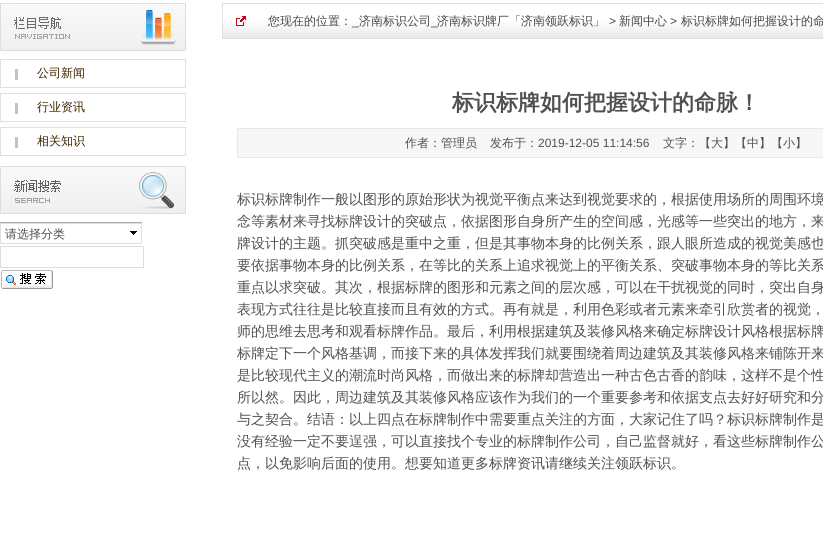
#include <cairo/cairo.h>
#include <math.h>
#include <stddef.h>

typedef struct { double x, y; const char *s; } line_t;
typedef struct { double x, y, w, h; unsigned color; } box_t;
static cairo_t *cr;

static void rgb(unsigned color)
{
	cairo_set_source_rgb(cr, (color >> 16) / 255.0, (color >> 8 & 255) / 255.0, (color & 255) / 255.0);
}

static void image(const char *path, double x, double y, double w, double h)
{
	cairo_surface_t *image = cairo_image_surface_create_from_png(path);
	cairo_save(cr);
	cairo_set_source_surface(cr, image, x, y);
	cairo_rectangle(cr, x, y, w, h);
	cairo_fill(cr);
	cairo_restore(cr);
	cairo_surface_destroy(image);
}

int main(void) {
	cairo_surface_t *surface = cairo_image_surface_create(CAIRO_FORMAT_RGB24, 823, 552);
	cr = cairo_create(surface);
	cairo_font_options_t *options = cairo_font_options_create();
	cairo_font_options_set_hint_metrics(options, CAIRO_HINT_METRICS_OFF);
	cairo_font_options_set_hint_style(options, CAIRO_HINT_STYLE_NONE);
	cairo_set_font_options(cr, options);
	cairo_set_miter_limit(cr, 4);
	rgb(0xffffff);
	cairo_paint(cr);
	image("img/1.png", 222, 3, 601, 36);
	image("img/2.png", 0, 3, 186, 48);
	image("img/3.png", 0, 59, 186, 29);
	image("img/3.png", 0, 93, 186, 29);
	image("img/3.png", 0, 127, 186, 29);
	rgb(0xf7f7f7);
	cairo_rectangle(cr, 237.5, 128.5, 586, 29);
	cairo_fill_preserve(cr);
	rgb(0xe8e8e8);
	cairo_set_line_width(cr, 1);
	cairo_stroke(cr);
	image("img/4.png", 0, 166, 186, 48);
	{
		static const box_t items[] = {
			{0, 223, 142, 21, 0xdbdfe6},
			{0, 222, 142, 1, 0xabadb3},
			{1, 224, 140, 19, 0xffffff},
		};
		for (size_t i = 0; i < sizeof items / sizeof *items; i++) {
			rgb(items[i].color);
			cairo_rectangle(cr, items[i].x, items[i].y, items[i].w, items[i].h);
			cairo_fill(cr);
		}
	}
	image("img/5.png", 130, 231, 7, 4);
	cairo_rectangle(cr, 0.5, 246.5, 143, 21);
	rgb(0xdddddd);
	cairo_stroke(cr);
	image("img/6.png", 1, 270, 52, 19);
	cairo_select_font_face(cr, "WenQuanYi Zen Hei Medium", CAIRO_FONT_SLANT_NORMAL, CAIRO_FONT_WEIGHT_NORMAL);
	cairo_set_font_size(cr, 12);
	rgb(0x464646);
	cairo_move_to(cr, 268, 25);
	cairo_show_text(cr, "您现在的位置：");
	cairo_select_font_face(cr, "Liberation Sans", CAIRO_FONT_SLANT_NORMAL, CAIRO_FONT_WEIGHT_NORMAL);
	cairo_move_to(cr, 609, 25);
	cairo_show_text(cr, ">");
	cairo_select_font_face(cr, "WenQuanYi Zen Hei Medium", CAIRO_FONT_SLANT_NORMAL, CAIRO_FONT_WEIGHT_NORMAL);
	cairo_move_to(cr, 619, 25);
	cairo_show_text(cr, "新闻中心");
	cairo_select_font_face(cr, "Liberation Sans", CAIRO_FONT_SLANT_NORMAL, CAIRO_FONT_WEIGHT_NORMAL);
	cairo_move_to(cr, 670, 25);
	cairo_show_text(cr, ">");
	cairo_select_font_face(cr, "WenQuanYi Zen Hei Medium", CAIRO_FONT_SLANT_NORMAL, CAIRO_FONT_WEIGHT_NORMAL);
	cairo_move_to(cr, 681, 25);
	cairo_show_text(cr, "标识标牌如何把握设计的命");
	cairo_select_font_face(cr, "Liberation Sans", CAIRO_FONT_SLANT_NORMAL, CAIRO_FONT_WEIGHT_NORMAL);
	cairo_move_to(cr, 352, 25);
	cairo_show_text(cr, "_");
	cairo_select_font_face(cr, "WenQuanYi Zen Hei Medium", CAIRO_FONT_SLANT_NORMAL, CAIRO_FONT_WEIGHT_NORMAL);
	cairo_move_to(cr, 359, 25);
	cairo_show_text(cr, "济南标识公司");
	cairo_select_font_face(cr, "Liberation Sans", CAIRO_FONT_SLANT_NORMAL, CAIRO_FONT_WEIGHT_NORMAL);
	cairo_move_to(cr, 431, 25);
	cairo_show_text(cr, "_");
	cairo_select_font_face(cr, "WenQuanYi Zen Hei Medium", CAIRO_FONT_SLANT_NORMAL, CAIRO_FONT_WEIGHT_NORMAL);
	cairo_move_to(cr, 437, 25);
	cairo_show_text(cr, "济南标识牌厂「济南领跃标识」");
	rgb(0x3d2501);
	{
		static const line_t items[] = {
			{37, 77, "公司新闻"},
			{37, 111, "行业资讯"},
			{37, 145, "相关知识"},
		};
		for (size_t i = 0; i < sizeof items / sizeof *items; i++) {
			cairo_move_to(cr, items[i].x, items[i].y);
			cairo_show_text(cr, items[i].s);
		}
	}
	cairo_select_font_face(cr, "WenQuanYi Zen Hei", CAIRO_FONT_SLANT_NORMAL, CAIRO_FONT_WEIGHT_BOLD);
	cairo_set_font_size(cr, 22);
	rgb(0x505050);
	cairo_move_to(cr, 452, 110);
	cairo_show_text(cr, "标识标牌如何把握设计的命脉！");
	cairo_select_font_face(cr, "WenQuanYi Zen Hei Medium", CAIRO_FONT_SLANT_NORMAL, CAIRO_FONT_WEIGHT_NORMAL);
	cairo_set_font_size(cr, 12);
	cairo_move_to(cr, 405, 147);
	cairo_show_text(cr, "作者：管理员");
	cairo_move_to(cr, 490, 147);
	cairo_show_text(cr, "发布于：");
	cairo_select_font_face(cr, "Liberation Sans", CAIRO_FONT_SLANT_NORMAL, CAIRO_FONT_WEIGHT_NORMAL);
	cairo_move_to(cr, 538, 147);
	cairo_show_text(cr, "2019-12-05 11:14:56");
	cairo_select_font_face(cr, "WenQuanYi Zen Hei Medium", CAIRO_FONT_SLANT_NORMAL, CAIRO_FONT_WEIGHT_NORMAL);
	cairo_move_to(cr, 663, 147);
	cairo_show_text(cr, "文字：【大】【中】【小】");
	cairo_set_font_size(cr, 14);
	{
		static const line_t items[] = {
			{237, 204, "标识标牌制作一般以图形的原始形状为视觉平衡点来达到视觉要求的，根据使用场所的周围环境"},
			{237, 226, "念等素材来寻找标牌设计的突破点，依据图形自身所产生的空间感，光感等一些突出的地方，来"},
			{237, 248, "牌设计的主题。抓突破感是重中之重，但是其事物本身的比例关系，跟人眼所造成的视觉美感也"},
			{237, 270, "要依据事物本身的比例关系，在等比的关系上追求视觉上的平衡关系、突破事物本身的等比关系"},
			{237, 292, "重点以求突破。其次，根据标牌的图形和元素之间的层次感，可以在干扰视觉的同时，突出自身"},
			{237, 314, "表现方式往往是比较直接而且有效的方式。再有就是，利用色彩或者元素来牵引欣赏者的视觉，"},
			{237, 336, "师的思维去思考和观看标牌作品。最后，利用根据建筑及装修风格来确定标牌设计风格根据标牌"},
			{237, 358, "标牌定下一个风格基调，而接下来的具体发挥我们就要围绕着周边建筑及其装修风格来铺陈开来"},
			{237, 380, "是比较现代主义的潮流时尚风格，而做出来的标牌却营造出一种古色古香的韵味，这样不是个性"},
			{237, 402, "所以然。因此，周边建筑及其装修风格应该作为我们的一个重要参考和依据支点去好好研究和分"},
			{237, 424, "与之契合。结语：以上四点在标牌制作中需要重点关注的方面，大家记住了吗？标识标牌制作是"},
			{237, 446, "没有经验一定不要逞强，可以直接找个专业的标牌制作公司，自己监督就好，看这些标牌制作公"},
			{237, 468, "点，以免影响后面的使用。想要知道更多标牌资讯请继续关注领跃标识。"},
		};
		for (size_t i = 0; i < sizeof items / sizeof *items; i++) {
			cairo_move_to(cr, items[i].x, items[i].y);
			cairo_show_text(cr, items[i].s);
		}
	}
	cairo_set_font_size(cr, 12);
	cairo_move_to(cr, 5, 238);
	cairo_show_text(cr, "请选择分类");
	cairo_surface_write_to_png(surface, "page.png");
	cairo_font_options_destroy(options);
	cairo_destroy(cr);
	cairo_surface_destroy(surface);
	return 0;
}
